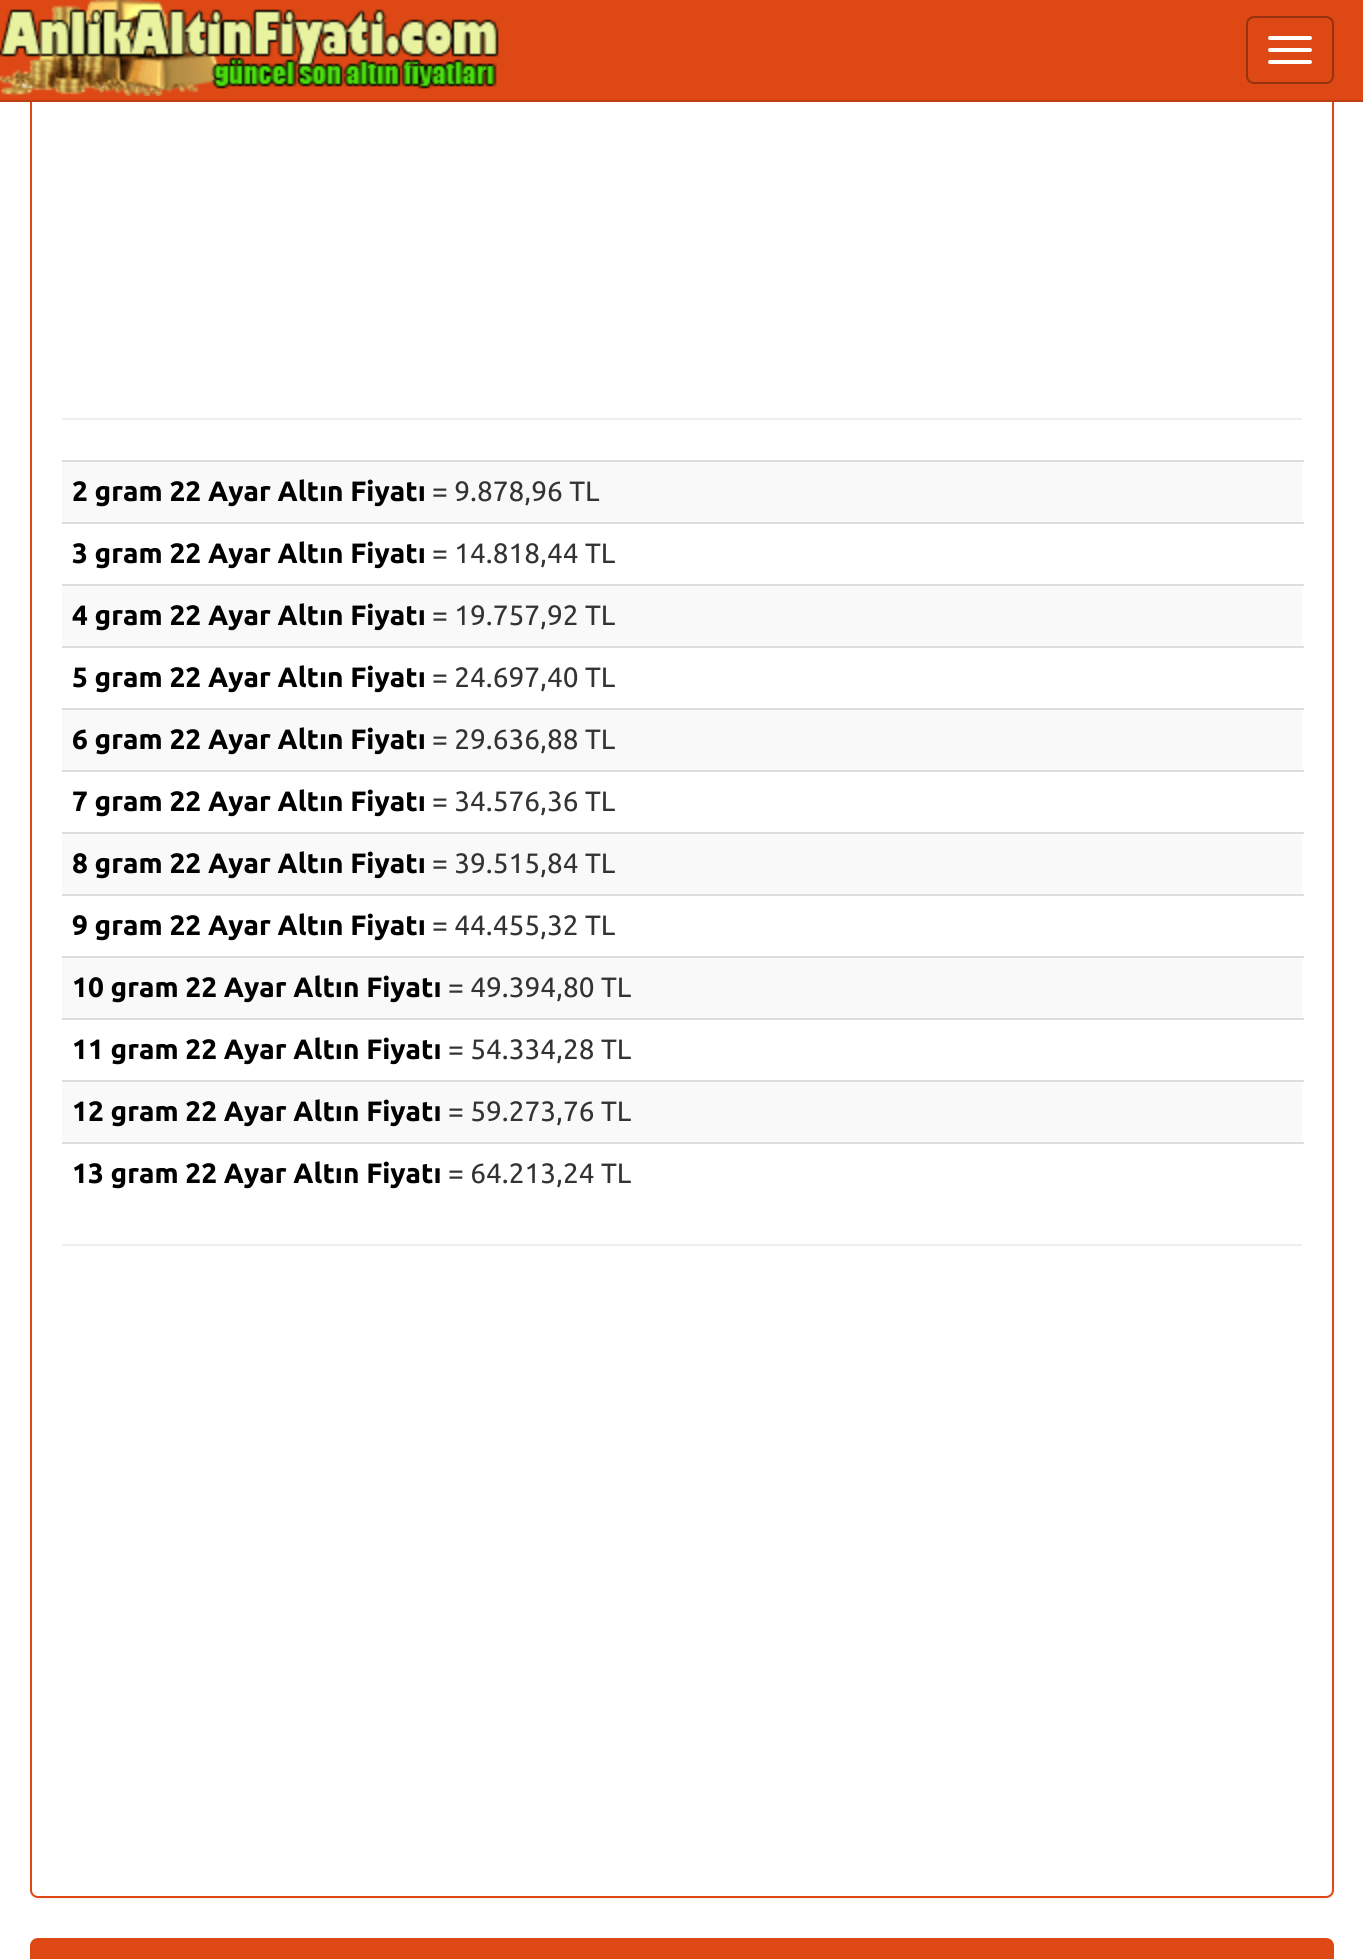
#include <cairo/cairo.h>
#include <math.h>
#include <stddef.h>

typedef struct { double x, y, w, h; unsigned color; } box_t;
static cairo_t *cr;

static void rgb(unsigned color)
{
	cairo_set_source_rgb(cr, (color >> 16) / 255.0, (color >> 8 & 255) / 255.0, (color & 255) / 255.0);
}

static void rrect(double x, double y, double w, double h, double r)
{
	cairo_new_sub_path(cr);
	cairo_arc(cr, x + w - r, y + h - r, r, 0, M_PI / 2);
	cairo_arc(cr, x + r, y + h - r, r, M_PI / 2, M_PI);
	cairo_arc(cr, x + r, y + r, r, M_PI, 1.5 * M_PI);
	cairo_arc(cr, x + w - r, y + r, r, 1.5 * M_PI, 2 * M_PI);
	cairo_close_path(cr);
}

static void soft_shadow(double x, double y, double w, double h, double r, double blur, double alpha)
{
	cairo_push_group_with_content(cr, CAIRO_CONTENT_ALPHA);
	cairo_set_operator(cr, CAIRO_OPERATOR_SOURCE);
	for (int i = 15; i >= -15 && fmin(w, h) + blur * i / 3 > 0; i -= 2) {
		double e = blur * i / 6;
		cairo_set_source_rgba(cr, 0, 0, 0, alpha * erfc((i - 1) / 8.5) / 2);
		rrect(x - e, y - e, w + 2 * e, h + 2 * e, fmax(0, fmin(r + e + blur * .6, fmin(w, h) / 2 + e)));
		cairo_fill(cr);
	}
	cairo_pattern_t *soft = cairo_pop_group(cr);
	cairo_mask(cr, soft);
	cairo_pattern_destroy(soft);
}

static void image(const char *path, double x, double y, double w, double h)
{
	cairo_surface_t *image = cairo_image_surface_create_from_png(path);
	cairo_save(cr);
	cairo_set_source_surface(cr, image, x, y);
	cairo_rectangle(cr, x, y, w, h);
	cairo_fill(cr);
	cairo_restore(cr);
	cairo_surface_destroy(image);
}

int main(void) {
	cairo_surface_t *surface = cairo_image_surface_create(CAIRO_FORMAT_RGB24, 1363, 1959);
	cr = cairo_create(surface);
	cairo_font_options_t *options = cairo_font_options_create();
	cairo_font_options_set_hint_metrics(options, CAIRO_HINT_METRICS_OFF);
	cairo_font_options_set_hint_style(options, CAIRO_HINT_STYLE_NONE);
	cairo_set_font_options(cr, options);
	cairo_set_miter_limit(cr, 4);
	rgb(0xffffff);
	cairo_paint(cr);
	rgb(0x000000);
	soft_shadow(30, -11, 1304, 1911, 8, 1, 0.05);
	rgb(0xffffff);
	rrect(31, -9, 1302, 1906, 7);
	cairo_fill_preserve(cr);
	rgb(0xdd4814);
	cairo_stroke(cr);
	cairo_rectangle(cr, 0, 0, 1363, 100);
	cairo_fill(cr);
	rgb(0xbf3e11);
	cairo_rectangle(cr, 0, 100, 1363, 2);
	cairo_fill(cr);
	image("img/1.png", 0, 0, 499, 96);
	rrect(1247, 17, 86, 66, 7);
	rgb(0x97310e);
	cairo_stroke(cr);
	rgb(0xffffff);
	rrect(1268, 36, 44, 4, 2);
	cairo_fill(cr);
	rrect(1268, 48, 44, 4, 2);
	cairo_fill(cr);
	rrect(1268, 60, 44, 4, 2);
	cairo_fill(cr);
	{
		static const box_t items[] = {
			{62, 418, 1240, 2, 0xeeeeee},
			{62, 462, 1240, 60, 0xf9f9f9},
			{62, 460, 1242, 2, 0xdddddd},
			{62, 522, 1242, 2, 0xdddddd},
			{62, 586, 1240, 60, 0xf9f9f9},
			{62, 584, 1242, 2, 0xdddddd},
			{62, 646, 1242, 2, 0xdddddd},
			{62, 710, 1240, 60, 0xf9f9f9},
			{62, 708, 1242, 2, 0xdddddd},
			{62, 770, 1242, 2, 0xdddddd},
			{62, 834, 1240, 60, 0xf9f9f9},
			{62, 832, 1242, 2, 0xdddddd},
			{62, 894, 1242, 2, 0xdddddd},
			{62, 958, 1240, 60, 0xf9f9f9},
			{62, 956, 1242, 2, 0xdddddd},
			{62, 1018, 1242, 2, 0xdddddd},
			{62, 1082, 1240, 60, 0xf9f9f9},
			{62, 1080, 1242, 2, 0xdddddd},
			{62, 1142, 1242, 2, 0xdddddd},
			{62, 1244, 1240, 2, 0xeeeeee},
		};
		for (size_t i = 0; i < sizeof items / sizeof *items; i++) {
			rgb(items[i].color);
			cairo_rectangle(cr, items[i].x, items[i].y, items[i].w, items[i].h);
			cairo_fill(cr);
		}
	}
	rgb(0xdd4814);
	cairo_new_path(cr);
	cairo_move_to(cr, 38, 1939);
	cairo_line_to(cr, 1326, 1939);
	cairo_curve_to(cr, 1330, 1939, 1333, 1942, 1333, 1946);
	cairo_line_to(cr, 1333, 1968);
	cairo_line_to(cr, 31, 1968);
	cairo_line_to(cr, 31, 1946);
	cairo_curve_to(cr, 31, 1942, 34, 1939, 38, 1939);
	cairo_close_path(cr);
	cairo_fill_preserve(cr);
	cairo_stroke(cr);
	cairo_select_font_face(cr, "Ubuntu", CAIRO_FONT_SLANT_NORMAL, CAIRO_FONT_WEIGHT_BOLD);
	cairo_set_font_size(cr, 28);
	rgb(0x000000);
	cairo_move_to(cr, 72, 501);
	cairo_show_text(cr, "2 gram 22 Ayar Altın Fiyatı");
	cairo_select_font_face(cr, "Ubuntu", CAIRO_FONT_SLANT_NORMAL, CAIRO_FONT_WEIGHT_NORMAL);
	rgb(0x333333);
	cairo_move_to(cr, 432, 501);
	cairo_show_text(cr, "= 9.878,96 TL");
	cairo_select_font_face(cr, "Ubuntu", CAIRO_FONT_SLANT_NORMAL, CAIRO_FONT_WEIGHT_BOLD);
	rgb(0x000000);
	cairo_move_to(cr, 72, 563);
	cairo_show_text(cr, "3 gram 22 Ayar Altın Fiyatı");
	cairo_select_font_face(cr, "Ubuntu", CAIRO_FONT_SLANT_NORMAL, CAIRO_FONT_WEIGHT_NORMAL);
	rgb(0x333333);
	cairo_move_to(cr, 432, 563);
	cairo_show_text(cr, "= 14.818,44 TL");
	cairo_select_font_face(cr, "Ubuntu", CAIRO_FONT_SLANT_NORMAL, CAIRO_FONT_WEIGHT_BOLD);
	rgb(0x000000);
	cairo_move_to(cr, 72, 625);
	cairo_show_text(cr, "4 gram 22 Ayar Altın Fiyatı");
	cairo_select_font_face(cr, "Ubuntu", CAIRO_FONT_SLANT_NORMAL, CAIRO_FONT_WEIGHT_NORMAL);
	rgb(0x333333);
	cairo_move_to(cr, 432, 625);
	cairo_show_text(cr, "= 19.757,92 TL");
	cairo_select_font_face(cr, "Ubuntu", CAIRO_FONT_SLANT_NORMAL, CAIRO_FONT_WEIGHT_BOLD);
	rgb(0x000000);
	cairo_move_to(cr, 72, 687);
	cairo_show_text(cr, "5 gram 22 Ayar Altın Fiyatı");
	cairo_select_font_face(cr, "Ubuntu", CAIRO_FONT_SLANT_NORMAL, CAIRO_FONT_WEIGHT_NORMAL);
	rgb(0x333333);
	cairo_move_to(cr, 432, 687);
	cairo_show_text(cr, "= 24.697,40 TL");
	cairo_select_font_face(cr, "Ubuntu", CAIRO_FONT_SLANT_NORMAL, CAIRO_FONT_WEIGHT_BOLD);
	rgb(0x000000);
	cairo_move_to(cr, 72, 749);
	cairo_show_text(cr, "6 gram 22 Ayar Altın Fiyatı");
	cairo_select_font_face(cr, "Ubuntu", CAIRO_FONT_SLANT_NORMAL, CAIRO_FONT_WEIGHT_NORMAL);
	rgb(0x333333);
	cairo_move_to(cr, 432, 749);
	cairo_show_text(cr, "= 29.636,88 TL");
	cairo_select_font_face(cr, "Ubuntu", CAIRO_FONT_SLANT_NORMAL, CAIRO_FONT_WEIGHT_BOLD);
	rgb(0x000000);
	cairo_move_to(cr, 72, 811);
	cairo_show_text(cr, "7 gram 22 Ayar Altın Fiyatı");
	cairo_select_font_face(cr, "Ubuntu", CAIRO_FONT_SLANT_NORMAL, CAIRO_FONT_WEIGHT_NORMAL);
	rgb(0x333333);
	cairo_move_to(cr, 432, 811);
	cairo_show_text(cr, "= 34.576,36 TL");
	cairo_select_font_face(cr, "Ubuntu", CAIRO_FONT_SLANT_NORMAL, CAIRO_FONT_WEIGHT_BOLD);
	rgb(0x000000);
	cairo_move_to(cr, 72, 873);
	cairo_show_text(cr, "8 gram 22 Ayar Altın Fiyatı");
	cairo_select_font_face(cr, "Ubuntu", CAIRO_FONT_SLANT_NORMAL, CAIRO_FONT_WEIGHT_NORMAL);
	rgb(0x333333);
	cairo_move_to(cr, 432, 873);
	cairo_show_text(cr, "= 39.515,84 TL");
	cairo_select_font_face(cr, "Ubuntu", CAIRO_FONT_SLANT_NORMAL, CAIRO_FONT_WEIGHT_BOLD);
	rgb(0x000000);
	cairo_move_to(cr, 72, 935);
	cairo_show_text(cr, "9 gram 22 Ayar Altın Fiyatı");
	cairo_select_font_face(cr, "Ubuntu", CAIRO_FONT_SLANT_NORMAL, CAIRO_FONT_WEIGHT_NORMAL);
	rgb(0x333333);
	cairo_move_to(cr, 432, 935);
	cairo_show_text(cr, "= 44.455,32 TL");
	cairo_select_font_face(cr, "Ubuntu", CAIRO_FONT_SLANT_NORMAL, CAIRO_FONT_WEIGHT_BOLD);
	rgb(0x000000);
	cairo_move_to(cr, 72, 997);
	cairo_show_text(cr, "10 gram 22 Ayar Altın Fiyatı");
	cairo_select_font_face(cr, "Ubuntu", CAIRO_FONT_SLANT_NORMAL, CAIRO_FONT_WEIGHT_NORMAL);
	rgb(0x333333);
	cairo_move_to(cr, 448, 997);
	cairo_show_text(cr, "= 49.394,80 TL");
	cairo_select_font_face(cr, "Ubuntu", CAIRO_FONT_SLANT_NORMAL, CAIRO_FONT_WEIGHT_BOLD);
	rgb(0x000000);
	cairo_move_to(cr, 72, 1059);
	cairo_show_text(cr, "11 gram 22 Ayar Altın Fiyatı");
	cairo_select_font_face(cr, "Ubuntu", CAIRO_FONT_SLANT_NORMAL, CAIRO_FONT_WEIGHT_NORMAL);
	rgb(0x333333);
	cairo_move_to(cr, 448, 1059);
	cairo_show_text(cr, "= 54.334,28 TL");
	cairo_select_font_face(cr, "Ubuntu", CAIRO_FONT_SLANT_NORMAL, CAIRO_FONT_WEIGHT_BOLD);
	rgb(0x000000);
	cairo_move_to(cr, 72, 1121);
	cairo_show_text(cr, "12 gram 22 Ayar Altın Fiyatı");
	cairo_select_font_face(cr, "Ubuntu", CAIRO_FONT_SLANT_NORMAL, CAIRO_FONT_WEIGHT_NORMAL);
	rgb(0x333333);
	cairo_move_to(cr, 448, 1121);
	cairo_show_text(cr, "= 59.273,76 TL");
	cairo_select_font_face(cr, "Ubuntu", CAIRO_FONT_SLANT_NORMAL, CAIRO_FONT_WEIGHT_BOLD);
	rgb(0x000000);
	cairo_move_to(cr, 72, 1183);
	cairo_show_text(cr, "13 gram 22 Ayar Altın Fiyatı");
	cairo_select_font_face(cr, "Ubuntu", CAIRO_FONT_SLANT_NORMAL, CAIRO_FONT_WEIGHT_NORMAL);
	rgb(0x333333);
	cairo_move_to(cr, 448, 1183);
	cairo_show_text(cr, "= 64.213,24 TL");
	cairo_surface_write_to_png(surface, "page.png");
	cairo_font_options_destroy(options);
	cairo_destroy(cr);
	cairo_surface_destroy(surface);
	return 0;
}
